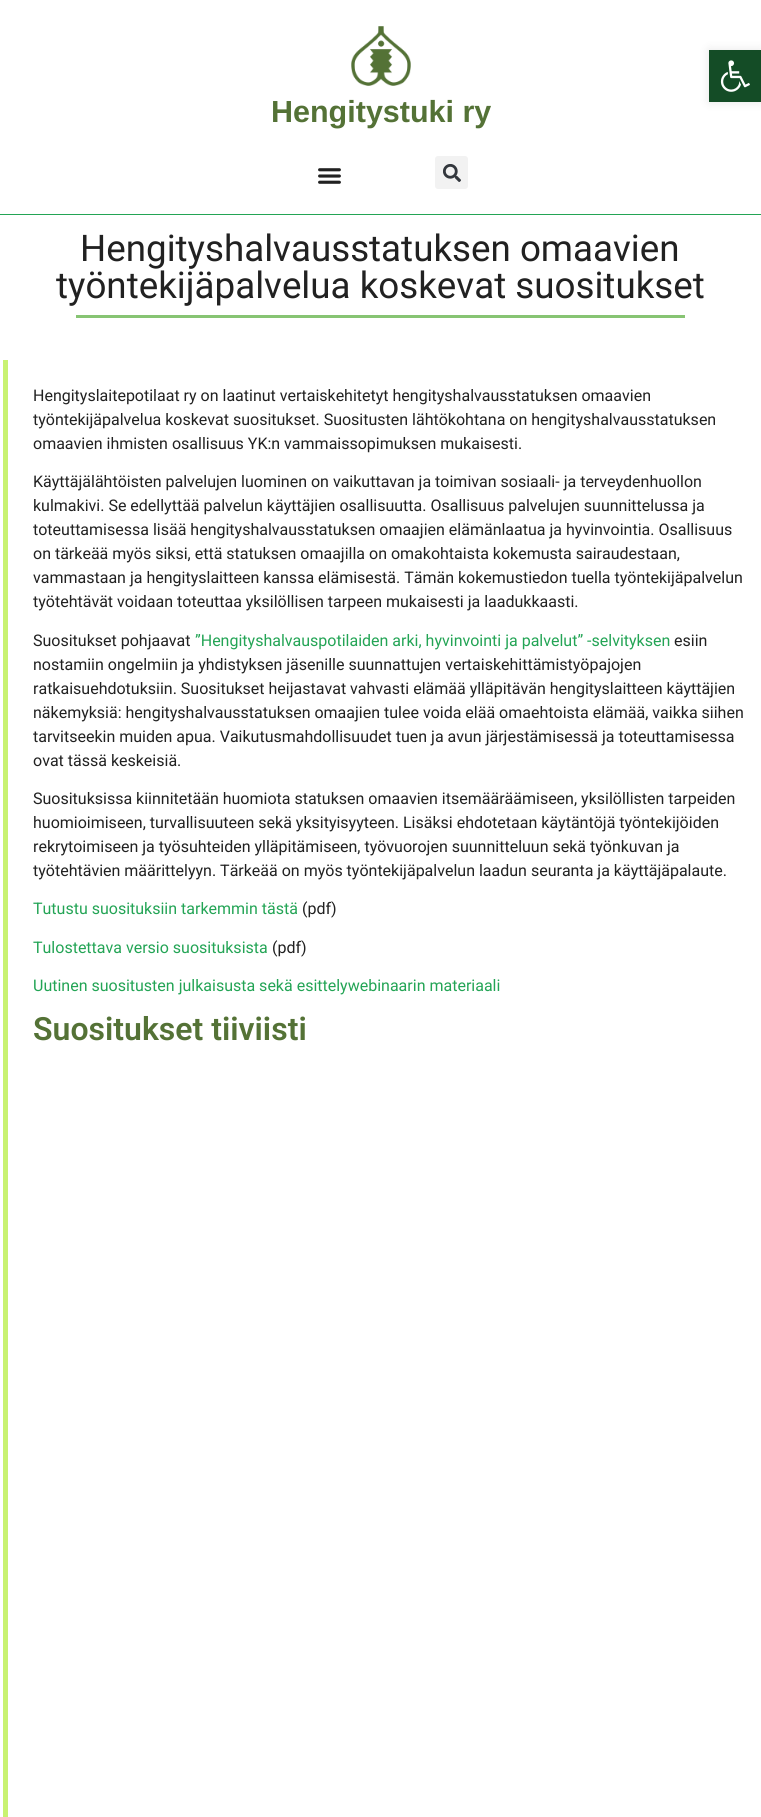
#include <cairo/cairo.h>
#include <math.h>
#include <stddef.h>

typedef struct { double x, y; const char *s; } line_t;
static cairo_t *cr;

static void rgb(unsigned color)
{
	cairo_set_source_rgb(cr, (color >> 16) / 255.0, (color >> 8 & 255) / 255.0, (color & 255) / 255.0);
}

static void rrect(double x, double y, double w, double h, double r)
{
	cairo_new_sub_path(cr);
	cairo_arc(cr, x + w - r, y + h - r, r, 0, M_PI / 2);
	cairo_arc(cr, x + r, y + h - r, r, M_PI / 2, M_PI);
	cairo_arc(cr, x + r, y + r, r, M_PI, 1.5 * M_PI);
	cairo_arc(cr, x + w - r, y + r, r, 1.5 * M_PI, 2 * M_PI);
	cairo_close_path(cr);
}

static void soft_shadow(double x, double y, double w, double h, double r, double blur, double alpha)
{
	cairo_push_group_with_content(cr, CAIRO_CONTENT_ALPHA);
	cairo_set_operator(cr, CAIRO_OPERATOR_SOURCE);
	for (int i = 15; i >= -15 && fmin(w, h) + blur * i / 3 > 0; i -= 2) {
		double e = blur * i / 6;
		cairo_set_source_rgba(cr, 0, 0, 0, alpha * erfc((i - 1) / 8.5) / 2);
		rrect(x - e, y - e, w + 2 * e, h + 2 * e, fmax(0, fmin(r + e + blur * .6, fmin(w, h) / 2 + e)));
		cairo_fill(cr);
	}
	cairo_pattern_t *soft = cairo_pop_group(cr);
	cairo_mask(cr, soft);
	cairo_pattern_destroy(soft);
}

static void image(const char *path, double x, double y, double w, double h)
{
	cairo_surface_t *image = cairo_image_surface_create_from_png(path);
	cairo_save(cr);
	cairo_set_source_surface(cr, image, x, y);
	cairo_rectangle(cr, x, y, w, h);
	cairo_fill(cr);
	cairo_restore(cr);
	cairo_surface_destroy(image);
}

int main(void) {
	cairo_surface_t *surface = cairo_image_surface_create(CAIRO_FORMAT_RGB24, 761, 1817);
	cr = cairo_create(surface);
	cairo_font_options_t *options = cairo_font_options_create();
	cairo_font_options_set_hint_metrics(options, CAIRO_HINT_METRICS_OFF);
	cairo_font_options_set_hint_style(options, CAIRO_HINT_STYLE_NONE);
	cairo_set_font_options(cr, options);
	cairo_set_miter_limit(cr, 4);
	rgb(0xffffff);
	cairo_paint(cr);
	rgb(0x23a455);
	cairo_rectangle(cr, 0, 214, 761, 1);
	cairo_fill(cr);
	image("img/1.png", 351, 26, 60, 60);
	image("img/2.png", 318, 168, 23, 16);
	rgb(0xf2f2f2);
	rrect(435, 156, 33, 33, 3);
	cairo_fill(cr);
	image("img/3.png", 443, 164, 18, 18);
	rgb(0x000000);
	soft_shadow(709, 50, 52, 52, 0, 5, 0.1);
	rgb(0x144c26);
	cairo_rectangle(cr, 709, 50, 52, 52);
	cairo_fill(cr);
	image("img/4.png", 720, 60, 30, 32);
	rgb(0x87c473);
	cairo_rectangle(cr, 76, 315, 609, 3);
	cairo_fill(cr);
	rgb(0xc9f271);
	cairo_rectangle(cr, 3, 360, 5, 1457);
	cairo_fill(cr);
	cairo_select_font_face(cr, "Liberation Sans", CAIRO_FONT_SLANT_NORMAL, CAIRO_FONT_WEIGHT_BOLD);
	cairo_set_font_size(cr, 30.5);
	rgb(0x547236);
	cairo_move_to(cr, 271, 122);
	cairo_show_text(cr, "Hengitystuki ry");
	cairo_select_font_face(cr, "Roboto", CAIRO_FONT_SLANT_NORMAL, CAIRO_FONT_WEIGHT_NORMAL);
	cairo_set_font_size(cr, 36.75);
	rgb(0x212121);
	cairo_move_to(cr, 80, 261);
	cairo_show_text(cr, "Hengityshalvausstatuksen omaavien");
	cairo_move_to(cr, 56, 298);
	cairo_show_text(cr, "työntekijäpalvelua koskevat suositukset");
	cairo_set_font_size(cr, 16);
	{
		static const line_t items[] = {
			{33, 401, "Hengityslaitepotilaat ry on laatinut vertaiskehitetyt hengityshalvausstatuksen omaavien"},
			{33, 425, "työntekijäpalvelua koskevat suositukset. Suositusten lähtökohtana on hengityshalvausstatuksen"},
			{33, 449, "omaavien ihmisten osallisuus YK:n vammaissopimuksen mukaisesti."},
			{33, 487, "Käyttäjälähtöisten palvelujen luominen on vaikuttavan ja toimivan sosiaali- ja terveydenhuollon"},
			{33, 511, "kulmakivi. Se edellyttää palvelun käyttäjien osallisuutta. Osallisuus palvelujen suunnittelussa ja"},
			{33, 535, "toteuttamisessa lisää hengityshalvausstatuksen omaajien elämänlaatua ja hyvinvointia. Osallisuus"},
			{33, 559, "on tärkeää myös siksi, että statuksen omaajilla on omakohtaista kokemusta sairaudestaan,"},
			{33, 583, "vammastaan ja hengityslaitteen kanssa elämisestä. Tämän kokemustiedon tuella työntekijäpalvelun"},
			{33, 607, "työtehtävät voidaan toteuttaa yksilöllisen tarpeen mukaisesti ja laadukkaasti."},
			{33, 646, "Suositukset pohjaavat"},
		};
		for (size_t i = 0; i < sizeof items / sizeof *items; i++) {
			cairo_move_to(cr, items[i].x, items[i].y);
			cairo_show_text(cr, items[i].s);
		}
	}
	rgb(0x23a455);
	cairo_move_to(cr, 195, 646);
	cairo_show_text(cr, "”Hengityshalvauspotilaiden arki, hyvinvointi ja palvelut” -selvityksen");
	rgb(0x212121);
	{
		static const line_t items[] = {
			{674, 646, "esiin"},
			{33, 670, "nostamiin ongelmiin ja yhdistyksen jäsenille suunnattujen vertaiskehittämistyöpajojen"},
			{33, 694, "ratkaisuehdotuksiin. Suositukset heijastavat vahvasti elämää ylläpitävän hengityslaitteen käyttäjien"},
			{33, 718, "näkemyksiä: hengityshalvausstatuksen omaajien tulee voida elää omaehtoista elämää, vaikka siihen"},
			{33, 742, "tarvitseekin muiden apua. Vaikutusmahdollisuudet tuen ja avun järjestämisessä ja toteuttamisessa"},
			{33, 766, "ovat tässä keskeisiä."},
			{33, 804, "Suosituksissa kiinnitetään huomiota statuksen omaavien itsemääräämiseen, yksilöllisten tarpeiden"},
			{33, 828, "huomioimiseen, turvallisuuteen sekä yksityisyyteen. Lisäksi ehdotetaan käytäntöjä työntekijöiden"},
			{33, 852, "rekrytoimiseen ja työsuhteiden ylläpitämiseen, työvuorojen suunnitteluun sekä työnkuvan ja"},
			{33, 876, "työtehtävien määrittelyyn. Tärkeää on myös työntekijäpalvelun laadun seuranta ja käyttäjäpalaute."},
		};
		for (size_t i = 0; i < sizeof items / sizeof *items; i++) {
			cairo_move_to(cr, items[i].x, items[i].y);
			cairo_show_text(cr, items[i].s);
		}
	}
	rgb(0x23a455);
	cairo_move_to(cr, 33, 914);
	cairo_show_text(cr, "Tutustu suosituksiin tarkemmin tästä");
	rgb(0x212121);
	cairo_move_to(cr, 302, 914);
	cairo_show_text(cr, "(pdf)");
	rgb(0x23a455);
	cairo_move_to(cr, 33, 953);
	cairo_show_text(cr, "Tulostettava versio suosituksista");
	rgb(0x212121);
	cairo_move_to(cr, 272, 953);
	cairo_show_text(cr, "(pdf)");
	rgb(0x23a455);
	cairo_move_to(cr, 33, 991);
	cairo_show_text(cr, "Uutinen suositusten julkaisusta sekä esittelywebinaarin materiaali");
	cairo_select_font_face(cr, "Roboto SemiBold", CAIRO_FONT_SLANT_NORMAL, CAIRO_FONT_WEIGHT_NORMAL);
	cairo_set_font_size(cr, 32);
	rgb(0x547236);
	cairo_move_to(cr, 33, 1040);
	cairo_show_text(cr, "Suositukset tiiviisti");
	cairo_surface_write_to_png(surface, "page.png");
	cairo_font_options_destroy(options);
	cairo_destroy(cr);
	cairo_surface_destroy(surface);
	return 0;
}
